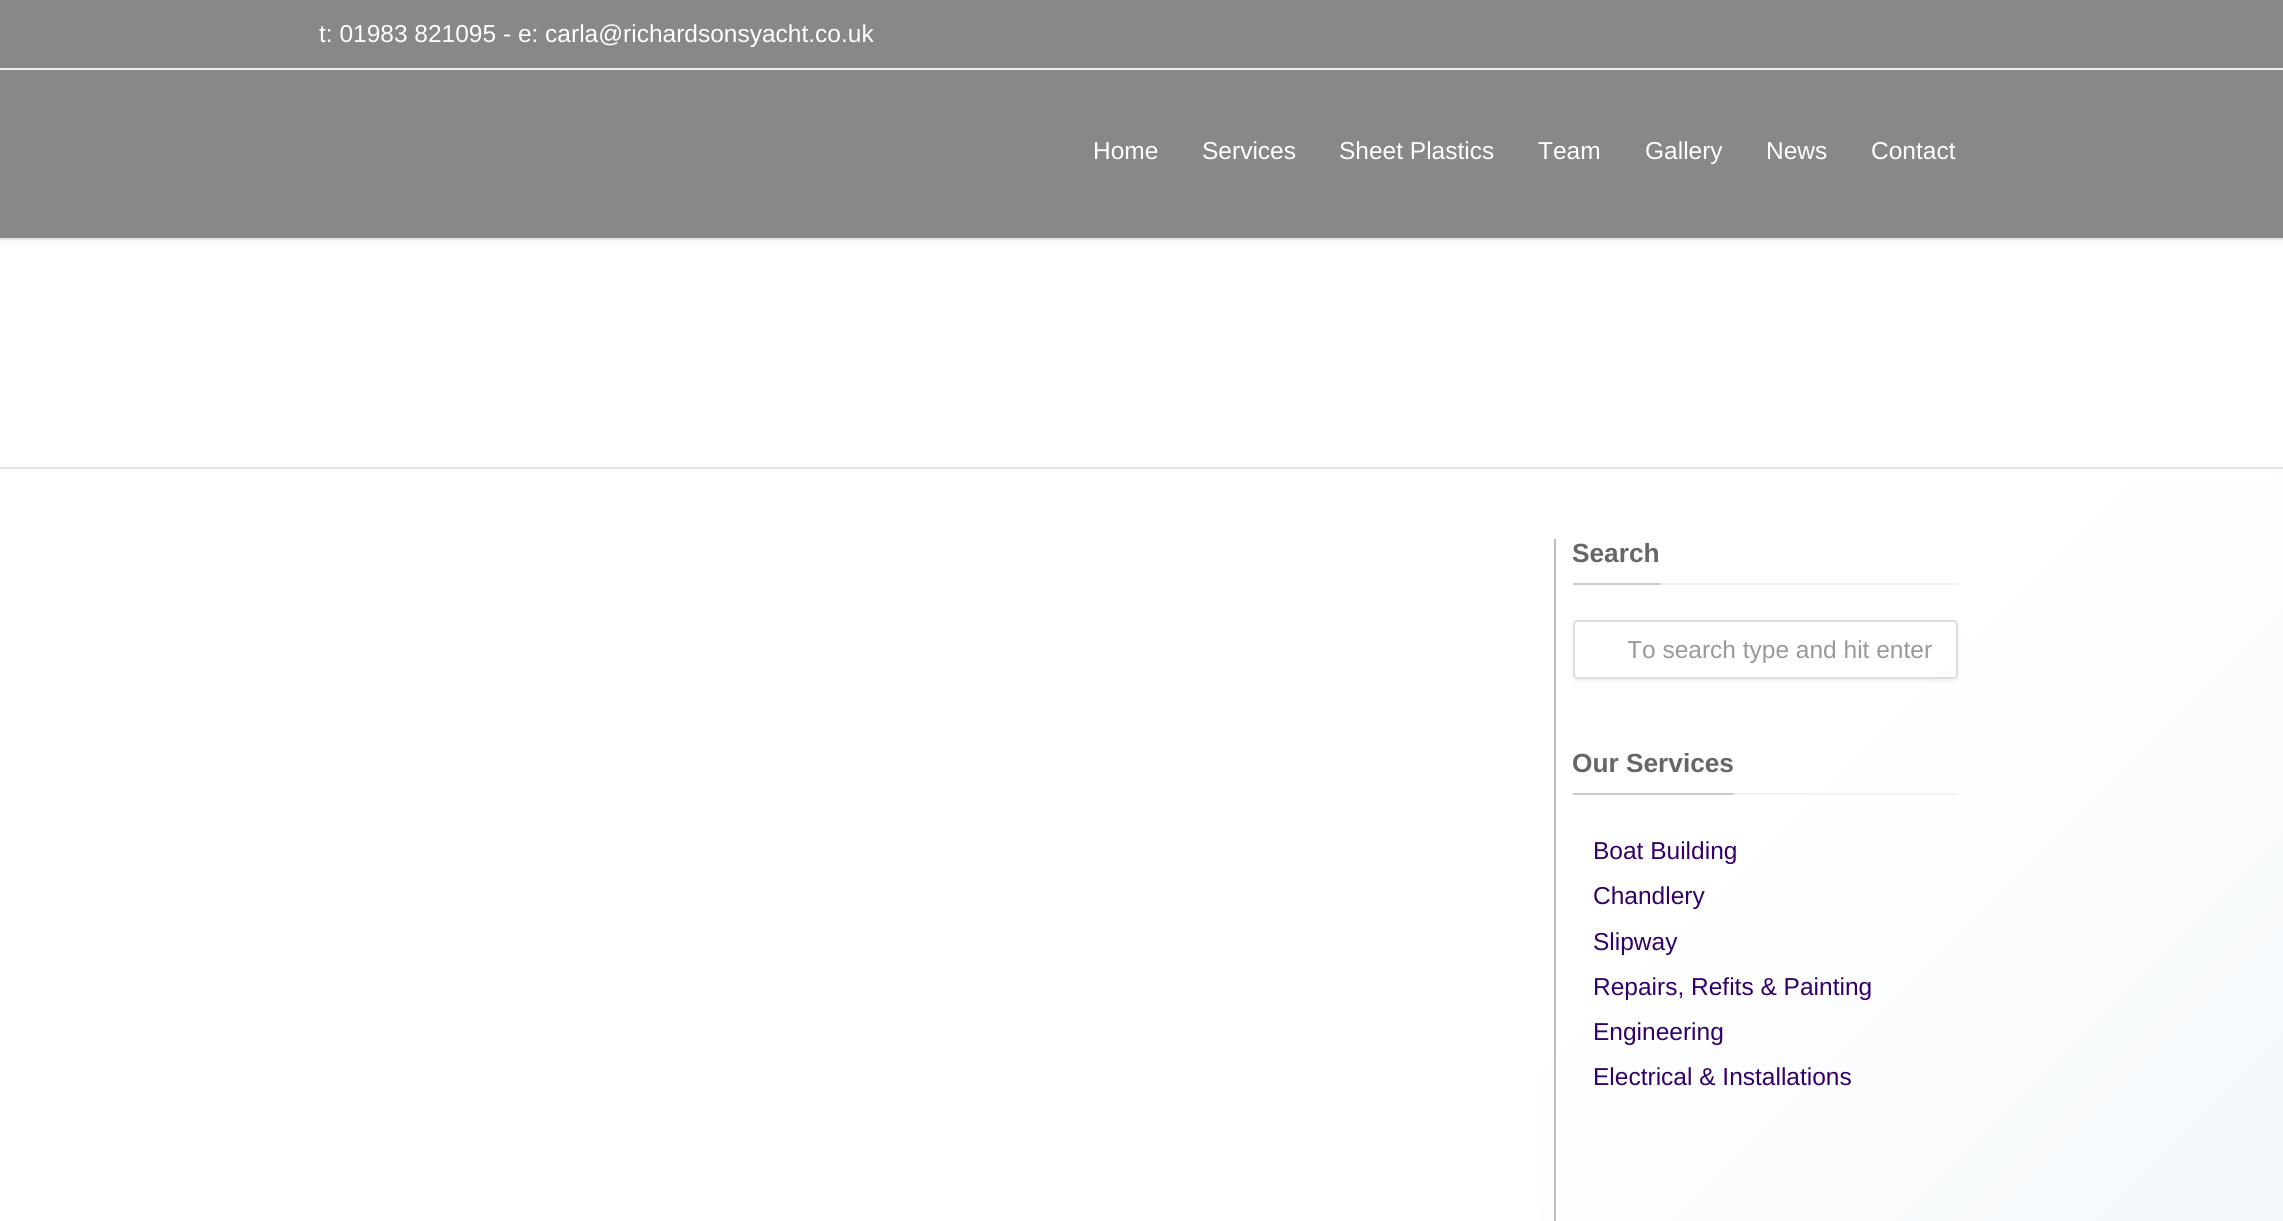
#include <cairo/cairo.h>
#include <math.h>
#include <stddef.h>

typedef struct { double x, y; const char *s; } line_t;
typedef struct { double x, y, w, h; unsigned color; } box_t;
static cairo_t *cr;

static void rgb(unsigned color)
{
	cairo_set_source_rgb(cr, (color >> 16) / 255.0, (color >> 8 & 255) / 255.0, (color & 255) / 255.0);
}

static void rrect(double x, double y, double w, double h, double r)
{
	cairo_new_sub_path(cr);
	cairo_arc(cr, x + w - r, y + h - r, r, 0, M_PI / 2);
	cairo_arc(cr, x + r, y + h - r, r, M_PI / 2, M_PI);
	cairo_arc(cr, x + r, y + r, r, M_PI, 1.5 * M_PI);
	cairo_arc(cr, x + w - r, y + r, r, 1.5 * M_PI, 2 * M_PI);
	cairo_close_path(cr);
}

static void soft_shadow(double x, double y, double w, double h, double r, double blur, double alpha)
{
	cairo_push_group_with_content(cr, CAIRO_CONTENT_ALPHA);
	cairo_set_operator(cr, CAIRO_OPERATOR_SOURCE);
	for (int i = 15; i >= -15 && fmin(w, h) + blur * i / 3 > 0; i -= 2) {
		double e = blur * i / 6;
		cairo_set_source_rgba(cr, 0, 0, 0, alpha * erfc((i - 1) / 8.5) / 2);
		rrect(x - e, y - e, w + 2 * e, h + 2 * e, fmax(0, fmin(r + e + blur * .6, fmin(w, h) / 2 + e)));
		cairo_fill(cr);
	}
	cairo_pattern_t *soft = cairo_pop_group(cr);
	cairo_mask(cr, soft);
	cairo_pattern_destroy(soft);
}

int main(void) {
	cairo_surface_t *surface = cairo_image_surface_create(CAIRO_FORMAT_RGB24, 2283, 1221);
	cr = cairo_create(surface);
	cairo_font_options_t *options = cairo_font_options_create();
	cairo_font_options_set_hint_metrics(options, CAIRO_HINT_METRICS_OFF);
	cairo_font_options_set_hint_style(options, CAIRO_HINT_STYLE_NONE);
	cairo_set_font_options(cr, options);
	cairo_set_miter_limit(cr, 4);
	cairo_pattern_t *gradient;
	rgb(0xffffff);
	cairo_paint(cr);
	gradient = cairo_pattern_create_linear(-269, 269, 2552, 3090);
	cairo_pattern_add_color_stop_rgba(gradient, 0.45, 1, 1, 1, 1);
	cairo_pattern_add_color_stop_rgba(gradient, 1, 0.863, 0.914, 0.949, 1);
	cairo_set_source(cr, gradient);
	cairo_pattern_destroy(gradient);
	cairo_rectangle(cr, 1540, 478, 743, 743);
	cairo_fill(cr);
	{
		static const box_t items[] = {
			{0, 0, 2283, 68, 0x888888},
			{0, 68, 2283, 2, 0xefefef},
			{0, 70, 2283, 168, 0x888888},
			{0, 240, 2283, 5, 0xfafafa},
			{0, 238, 2283, 2, 0xe4e4e4},
			{0, 467, 2283, 2, 0xe4e4e4},
			{1554, 539, 2, 682, 0xbfbfbf},
			{1661, 583, 297, 2, 0xf1f1f1},
			{1573, 583, 88, 2, 0xcccccc},
		};
		for (size_t i = 0; i < sizeof items / sizeof *items; i++) {
			rgb(items[i].color);
			cairo_rectangle(cr, items[i].x, items[i].y, items[i].w, items[i].h);
			cairo_fill(cr);
		}
	}
	cairo_save(cr);
	cairo_set_fill_rule(cr, CAIRO_FILL_RULE_EVEN_ODD);
	cairo_new_path(cr);
	cairo_move_to(cr, 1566, 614);
	cairo_line_to(cr, 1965, 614);
	cairo_line_to(cr, 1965, 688);
	cairo_line_to(cr, 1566, 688);
	cairo_close_path(cr);
	cairo_move_to(cr, 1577, 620);
	cairo_line_to(cr, 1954, 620);
	cairo_curve_to(cr, 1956, 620, 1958, 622, 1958, 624);
	cairo_line_to(cr, 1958, 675);
	cairo_curve_to(cr, 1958, 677, 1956, 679, 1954, 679);
	cairo_line_to(cr, 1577, 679);
	cairo_curve_to(cr, 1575, 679, 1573, 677, 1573, 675);
	cairo_line_to(cr, 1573, 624);
	cairo_curve_to(cr, 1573, 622, 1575, 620, 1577, 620);
	cairo_close_path(cr);
	cairo_clip(cr);
	rgb(0xb4b4b4);
	soft_shadow(1573, 621, 385, 60, 4, 2, 0.2);
	cairo_restore(cr);
	rrect(1574, 621, 383, 57, 3);
	rgb(0xdddddd);
	cairo_stroke(cr);
	rgb(0xf1f1f1);
	cairo_rectangle(cr, 1734, 793, 224, 2);
	cairo_fill(cr);
	rgb(0xcccccc);
	cairo_rectangle(cr, 1573, 793, 161, 2);
	cairo_fill(cr);
	cairo_select_font_face(cr, "Liberation Sans", CAIRO_FONT_SLANT_NORMAL, CAIRO_FONT_WEIGHT_NORMAL);
	cairo_set_font_size(cr, 24.5);
	rgb(0xffffff);
	{
		static const line_t items[] = {
			{319, 42, "t: 01983 821095 - e: carla@richardsonsyacht.co.uk"},
			{1093, 159, "Home"},
			{1202, 159, "Services"},
			{1339, 159, "Sheet Plastics"},
			{1538, 159, "Team"},
			{1645, 159, "Gallery"},
			{1766, 159, "News"},
			{1871, 159, "Contact"},
		};
		for (size_t i = 0; i < sizeof items / sizeof *items; i++) {
			cairo_move_to(cr, items[i].x, items[i].y);
			cairo_show_text(cr, items[i].s);
		}
	}
	cairo_select_font_face(cr, "Liberation Sans", CAIRO_FONT_SLANT_NORMAL, CAIRO_FONT_WEIGHT_BOLD);
	cairo_set_font_size(cr, 26.25);
	rgb(0x666666);
	cairo_move_to(cr, 1572, 562);
	cairo_show_text(cr, "Search");
	cairo_save(cr);
	cairo_rectangle(cr, 1628, 635, 315, 28);
	cairo_clip(cr);
	cairo_select_font_face(cr, "Liberation Sans", CAIRO_FONT_SLANT_NORMAL, CAIRO_FONT_WEIGHT_NORMAL);
	cairo_set_font_size(cr, 24.5);
	rgb(0x999999);
	cairo_move_to(cr, 1627, 658);
	cairo_show_text(cr, "To search type and hit enter");
	cairo_restore(cr);
	cairo_move_to(cr, 1572, 772);
	cairo_show_text(cr, "Our Services");
	cairo_select_font_face(cr, "Liberation Sans", CAIRO_FONT_SLANT_NORMAL, CAIRO_FONT_WEIGHT_NORMAL);
	cairo_set_font_size(cr, 24.5);
	rgb(0x330069);
	{
		static const line_t items[] = {
			{1593, 859, "Boat Building"},
			{1593, 904, "Chandlery"},
			{1593, 950, "Slipway"},
			{1593, 995, "Repairs, Refits & Painting"},
			{1593, 1040, "Engineering"},
			{1593, 1085, "Electrical & Installations"},
		};
		for (size_t i = 0; i < sizeof items / sizeof *items; i++) {
			cairo_move_to(cr, items[i].x, items[i].y);
			cairo_show_text(cr, items[i].s);
		}
	}
	cairo_surface_write_to_png(surface, "page.png");
	cairo_font_options_destroy(options);
	cairo_destroy(cr);
	cairo_surface_destroy(surface);
	return 0;
}
